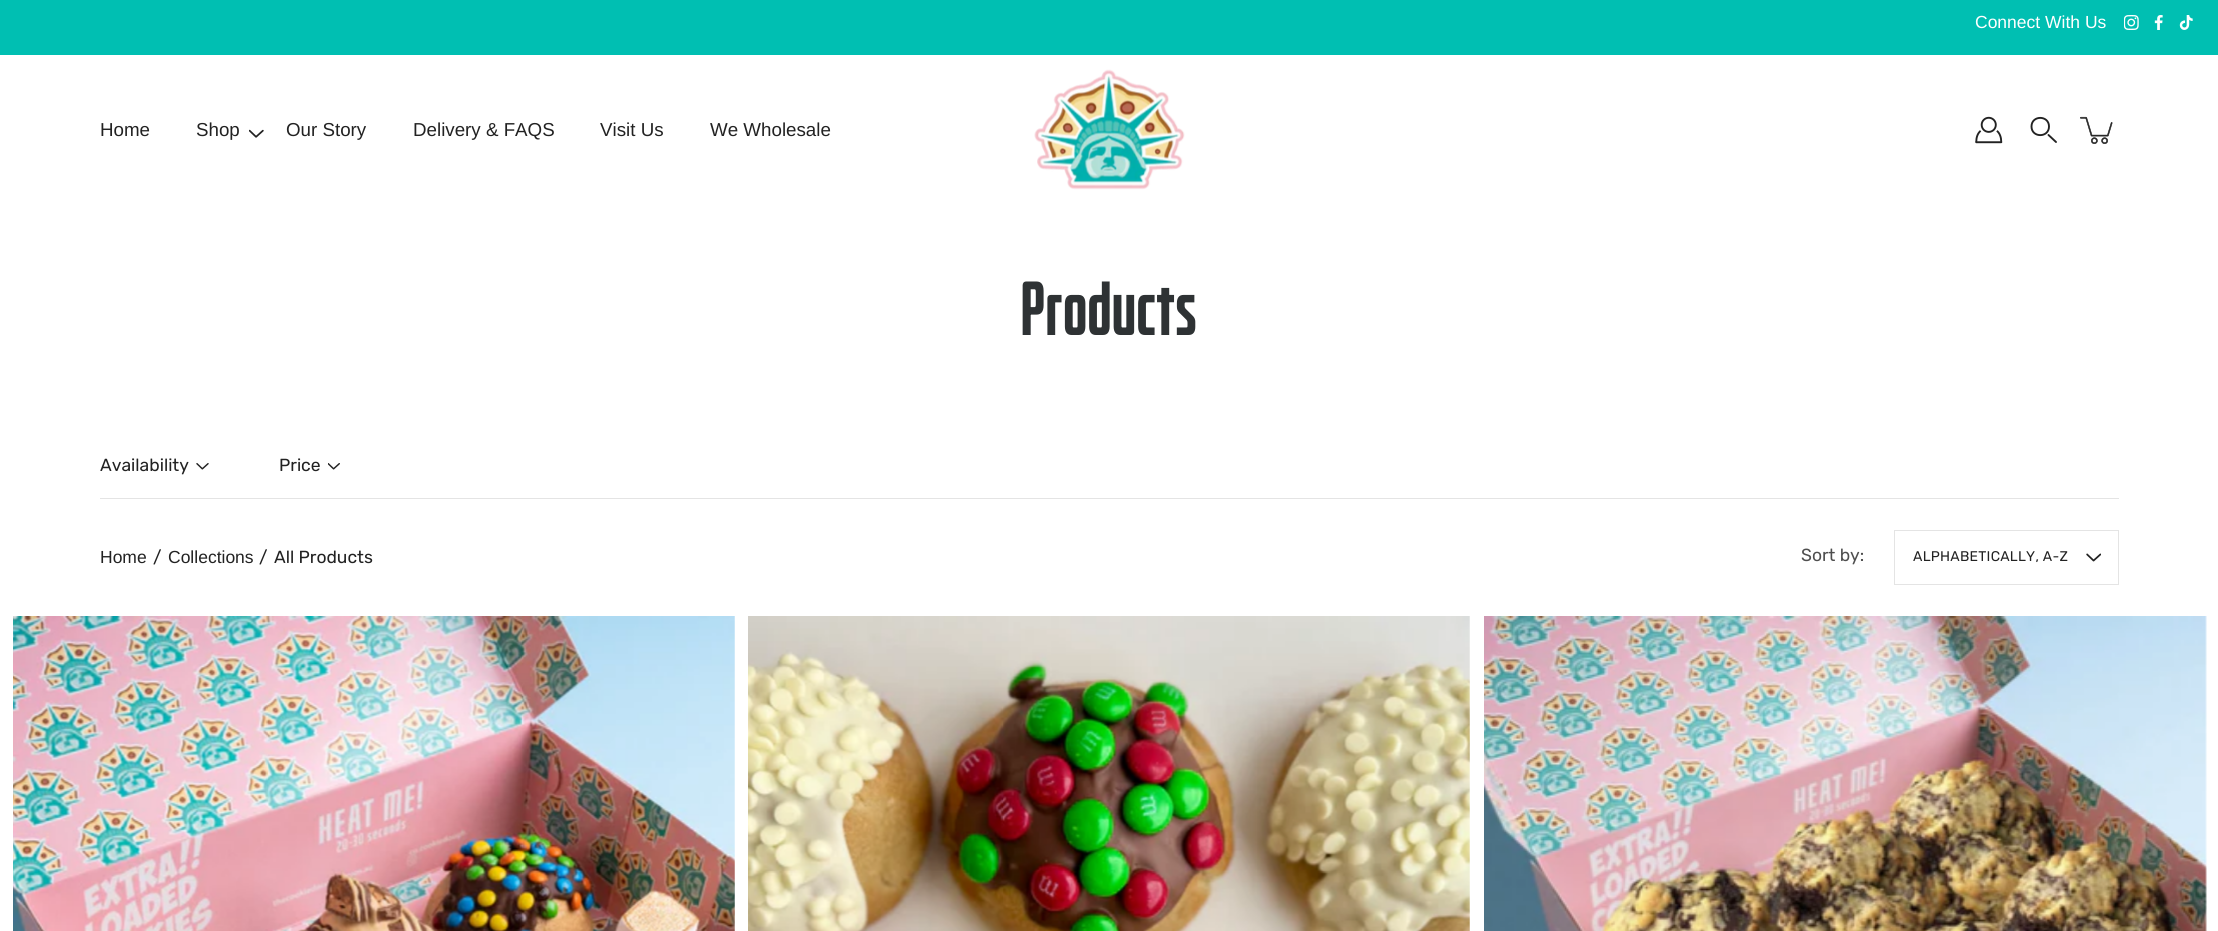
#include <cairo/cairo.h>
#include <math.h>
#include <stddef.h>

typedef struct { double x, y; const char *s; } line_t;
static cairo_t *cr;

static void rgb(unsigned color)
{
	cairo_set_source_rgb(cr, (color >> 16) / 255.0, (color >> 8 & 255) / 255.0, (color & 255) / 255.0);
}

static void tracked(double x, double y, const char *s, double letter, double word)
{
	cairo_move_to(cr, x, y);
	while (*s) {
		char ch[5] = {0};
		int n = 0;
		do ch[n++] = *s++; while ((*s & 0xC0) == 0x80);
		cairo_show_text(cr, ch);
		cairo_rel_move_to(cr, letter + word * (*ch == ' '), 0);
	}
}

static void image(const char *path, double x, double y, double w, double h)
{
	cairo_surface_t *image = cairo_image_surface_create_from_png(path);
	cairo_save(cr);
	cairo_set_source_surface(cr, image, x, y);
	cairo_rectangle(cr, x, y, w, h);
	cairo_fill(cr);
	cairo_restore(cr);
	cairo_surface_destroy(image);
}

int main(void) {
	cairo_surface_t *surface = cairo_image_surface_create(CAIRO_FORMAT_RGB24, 2218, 931);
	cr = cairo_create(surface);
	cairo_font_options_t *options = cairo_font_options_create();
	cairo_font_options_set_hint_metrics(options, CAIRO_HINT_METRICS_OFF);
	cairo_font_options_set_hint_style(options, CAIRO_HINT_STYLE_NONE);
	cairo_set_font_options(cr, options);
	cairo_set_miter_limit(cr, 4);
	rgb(0xffffff);
	cairo_paint(cr);
	rgb(0x00bfb2);
	cairo_rectangle(cr, 0, 0, 2218, 55);
	cairo_fill(cr);
	image("img/1.png", 2124, 15, 15, 15);
	image("img/2.png", 2154, 15, 9, 15);
	image("img/3.png", 2179, 15, 14, 15);
	image("img/4.png", 249, 129, 15, 9);
	image("img/5.png", 1975, 116, 28, 28);
	cairo_new_path(cr);
	cairo_move_to(cr, 2049, 126.5);
	cairo_curve_to(cr, 2049, 138, 2031.5, 138, 2031.5, 126.5);
	cairo_curve_to(cr, 2031.5, 115, 2049, 115, 2049, 126.5);
	cairo_close_path(cr);
	rgb(0x222222);
	cairo_set_line_width(cr, 1.9);
	cairo_stroke(cr);
	cairo_new_path(cr);
	cairo_move_to(cr, 2048.5, 135);
	cairo_line_to(cr, 2056, 142);
	cairo_set_line_cap(cr, CAIRO_LINE_CAP_ROUND);
	cairo_stroke(cr);
	image("img/6.png", 2080, 116, 33, 28);
	image("img/7.png", 1034, 69, 151, 121);
	rgb(0xe4e4e4);
	cairo_rectangle(cr, 100, 498, 2019, 1);
	cairo_fill(cr);
	image("img/8.png", 196, 463, 13, 7);
	image("img/9.png", 328, 463, 12, 7);
	cairo_rectangle(cr, 1894.5, 530.5, 224, 54);
	cairo_set_line_width(cr, 1);
	cairo_set_line_cap(cr, CAIRO_LINE_CAP_BUTT);
	cairo_stroke(cr);
	image("img/10.png", 2086, 553, 15, 9);
	image("img/11.png", 13, 616, 722, 315);
	image("img/12.png", 748, 616, 722, 315);
	image("img/13.png", 1484, 616, 723, 315);
	cairo_select_font_face(cr, "Liberation Sans", CAIRO_FONT_SLANT_NORMAL, CAIRO_FONT_WEIGHT_NORMAL);
	cairo_set_font_size(cr, 17.5);
	rgb(0xffffff);
	cairo_move_to(cr, 1975, 28);
	cairo_show_text(cr, "Connect With Us");
	cairo_set_font_size(cr, 18.75);
	rgb(0x222222);
	{
		static const line_t items[] = {
			{100, 136, "Home"},
			{196, 136, "Shop"},
			{286, 136, "Our Story"},
			{413, 136, "Delivery & FAQS"},
			{600, 136, "Visit Us"},
			{710, 136, "We Wholesale"},
		};
		for (size_t i = 0; i < sizeof items / sizeof *items; i++) {
			cairo_move_to(cr, items[i].x, items[i].y);
			cairo_show_text(cr, items[i].s);
		}
	}
	cairo_select_font_face(cr, "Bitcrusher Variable", CAIRO_FONT_SLANT_NORMAL, CAIRO_FONT_WEIGHT_BOLD);
	cairo_set_font_size(cr, 65.5);
	rgb(0x2e3234);
	tracked(1021, 335, "Products", 2.5, 0);
	cairo_select_font_face(cr, "Rubik", CAIRO_FONT_SLANT_NORMAL, CAIRO_FONT_WEIGHT_NORMAL);
	cairo_set_font_size(cr, 17.5);
	rgb(0x222222);
	cairo_move_to(cr, 100, 471);
	cairo_show_text(cr, "Availability");
	cairo_move_to(cr, 279, 471);
	cairo_show_text(cr, "Price");
	cairo_select_font_face(cr, "Liberation Sans", CAIRO_FONT_SLANT_NORMAL, CAIRO_FONT_WEIGHT_NORMAL);
	cairo_move_to(cr, 100, 563);
	cairo_show_text(cr, "Home");
	cairo_select_font_face(cr, "Rubik", CAIRO_FONT_SLANT_NORMAL, CAIRO_FONT_WEIGHT_NORMAL);
	cairo_move_to(cr, 153, 563);
	cairo_show_text(cr, "/");
	cairo_select_font_face(cr, "Liberation Sans", CAIRO_FONT_SLANT_NORMAL, CAIRO_FONT_WEIGHT_NORMAL);
	cairo_move_to(cr, 168, 563);
	cairo_show_text(cr, "Collections");
	cairo_select_font_face(cr, "Rubik", CAIRO_FONT_SLANT_NORMAL, CAIRO_FONT_WEIGHT_NORMAL);
	cairo_move_to(cr, 259, 563);
	cairo_show_text(cr, "/");
	cairo_move_to(cr, 274, 563);
	cairo_show_text(cr, "All Products");
	rgb(0x4e4e4e);
	cairo_move_to(cr, 1801, 561);
	cairo_show_text(cr, "Sort by:");
	cairo_set_font_size(cr, 14);
	rgb(0x222222);
	tracked(1913, 561, "ALPHABETICALLY, A-Z", 0.25, 0);
	cairo_surface_write_to_png(surface, "page.png");
	cairo_font_options_destroy(options);
	cairo_destroy(cr);
	cairo_surface_destroy(surface);
	return 0;
}
